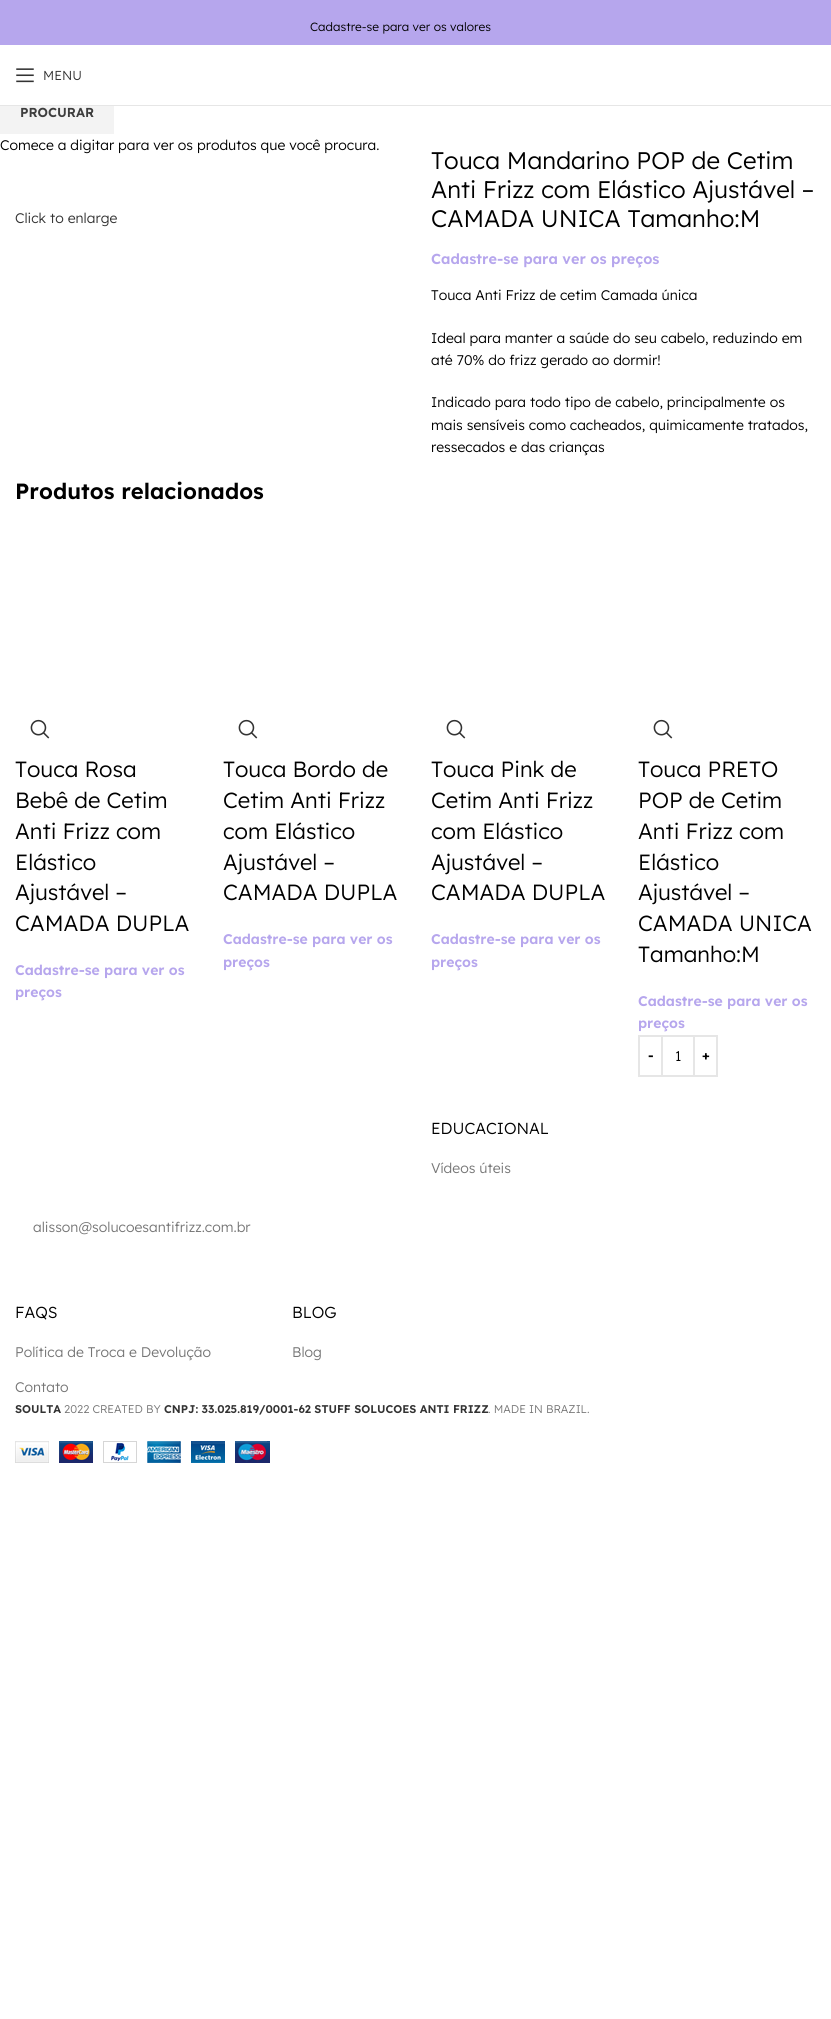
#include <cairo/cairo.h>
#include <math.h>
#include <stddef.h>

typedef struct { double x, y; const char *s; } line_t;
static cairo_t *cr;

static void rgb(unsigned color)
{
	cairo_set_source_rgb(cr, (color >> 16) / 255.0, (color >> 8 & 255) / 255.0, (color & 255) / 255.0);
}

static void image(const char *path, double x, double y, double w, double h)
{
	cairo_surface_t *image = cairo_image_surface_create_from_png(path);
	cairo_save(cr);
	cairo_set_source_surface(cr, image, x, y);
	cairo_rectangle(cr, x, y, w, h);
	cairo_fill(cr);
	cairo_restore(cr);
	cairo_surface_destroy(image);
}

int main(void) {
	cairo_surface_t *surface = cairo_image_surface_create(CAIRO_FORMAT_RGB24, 831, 2019);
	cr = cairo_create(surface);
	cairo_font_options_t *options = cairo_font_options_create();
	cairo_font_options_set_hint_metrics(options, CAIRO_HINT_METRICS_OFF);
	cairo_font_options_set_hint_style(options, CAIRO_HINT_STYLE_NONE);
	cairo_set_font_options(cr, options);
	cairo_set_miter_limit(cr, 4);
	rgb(0xffffff);
	cairo_paint(cr);
	rgb(0xb6a6ed);
	cairo_rectangle(cr, 0, 0, 831, 45);
	cairo_fill(cr);
	rgb(0xe6e6e6);
	cairo_rectangle(cr, 0, 105, 831, 1);
	cairo_fill(cr);
	image("img/1.png", 16, 68, 18, 15);
	image("img/2.png", 30, 719, 20, 20);
	image("img/2.png", 238, 719, 20, 20);
	image("img/2.png", 446, 719, 20, 20);
	image("img/2.png", 653, 719, 20, 20);
	cairo_rectangle(cr, 639, 1036, 23, 40);
	cairo_stroke(cr);
	cairo_rectangle(cr, 663, 1035, 30, 2);
	cairo_fill(cr);
	cairo_rectangle(cr, 663, 1075, 30, 2);
	cairo_fill(cr);
	cairo_rectangle(cr, 694, 1036, 23, 40);
	cairo_stroke(cr);
	image("img/3.png", 15, 1441, 255, 22);
	rgb(0xf3f3f3);
	cairo_rectangle(cr, 0, 106, 114, 28);
	cairo_fill(cr);
	cairo_select_font_face(cr, "Lexend Light", CAIRO_FONT_SLANT_NORMAL, CAIRO_FONT_WEIGHT_NORMAL);
	cairo_set_font_size(cr, 12);
	rgb(0x000000);
	cairo_move_to(cr, 310, 31);
	cairo_show_text(cr, "Cadastre-se para ver os valores");
	cairo_set_font_size(cr, 13);
	rgb(0x333333);
	cairo_move_to(cr, 43, 80);
	cairo_show_text(cr, "MENU");
	cairo_set_font_size(cr, 14);
	cairo_move_to(cr, 15, 223);
	cairo_show_text(cr, "Click to enlarge");
	cairo_set_font_size(cr, 24);
	rgb(0x000000);
	{
		static const line_t items[] = {
			{431, 169, "Touca Mandarino POP de Cetim"},
			{431, 198, "Anti Frizz com Elástico Ajustável –"},
			{431, 227, "CAMADA UNICA Tamanho:M"},
		};
		for (size_t i = 0; i < sizeof items / sizeof *items; i++) {
			cairo_move_to(cr, items[i].x, items[i].y);
			cairo_show_text(cr, items[i].s);
		}
	}
	cairo_select_font_face(cr, "Lexend SemiBold", CAIRO_FONT_SLANT_NORMAL, CAIRO_FONT_WEIGHT_NORMAL);
	cairo_set_font_size(cr, 14.5);
	rgb(0xb6a6ed);
	cairo_move_to(cr, 431, 264);
	cairo_show_text(cr, "Cadastre-se para ver os preços");
	cairo_select_font_face(cr, "Lexend Light", CAIRO_FONT_SLANT_NORMAL, CAIRO_FONT_WEIGHT_NORMAL);
	cairo_set_font_size(cr, 14);
	rgb(0x000000);
	{
		static const line_t items[] = {
			{431, 300, "Touca Anti Frizz de cetim Camada única"},
			{431, 343, "Ideal para manter a saúde do seu cabelo, reduzindo em"},
			{431, 365, "até 70% do frizz gerado ao dormir!"},
			{431, 407, "Indicado para todo tipo de cabelo, principalmente os"},
			{431, 430, "mais sensíveis como cacheados, quimicamente tratados,"},
			{431, 452, "ressecados e das crianças"},
		};
		for (size_t i = 0; i < sizeof items / sizeof *items; i++) {
			cairo_move_to(cr, items[i].x, items[i].y);
			cairo_show_text(cr, items[i].s);
		}
	}
	cairo_select_font_face(cr, "Lexend SemiBold", CAIRO_FONT_SLANT_NORMAL, CAIRO_FONT_WEIGHT_NORMAL);
	cairo_set_font_size(cr, 22);
	cairo_move_to(cr, 15, 499);
	cairo_show_text(cr, "Produtos relacionados");
	cairo_select_font_face(cr, "Lexend Light", CAIRO_FONT_SLANT_NORMAL, CAIRO_FONT_WEIGHT_NORMAL);
	{
		static const line_t items[] = {
			{15, 777, "Touca Rosa"},
			{15, 808, "Bebê de Cetim"},
			{15, 839, "Anti Frizz com"},
			{15, 870, "Elástico"},
			{15, 900, "Ajustável –"},
			{15, 931, "CAMADA DUPLA"},
		};
		for (size_t i = 0; i < sizeof items / sizeof *items; i++) {
			cairo_move_to(cr, items[i].x, items[i].y);
			cairo_show_text(cr, items[i].s);
		}
	}
	cairo_select_font_face(cr, "Lexend SemiBold", CAIRO_FONT_SLANT_NORMAL, CAIRO_FONT_WEIGHT_NORMAL);
	cairo_set_font_size(cr, 14);
	rgb(0xb6a6ed);
	cairo_move_to(cr, 15, 975);
	cairo_show_text(cr, "Cadastre-se para ver os");
	cairo_move_to(cr, 15, 997);
	cairo_show_text(cr, "preços");
	cairo_select_font_face(cr, "Lexend Light", CAIRO_FONT_SLANT_NORMAL, CAIRO_FONT_WEIGHT_NORMAL);
	cairo_set_font_size(cr, 22);
	rgb(0x000000);
	{
		static const line_t items[] = {
			{223, 777, "Touca Bordo de"},
			{223, 808, "Cetim Anti Frizz"},
			{223, 839, "com Elástico"},
			{223, 870, "Ajustável –"},
			{223, 900, "CAMADA DUPLA"},
		};
		for (size_t i = 0; i < sizeof items / sizeof *items; i++) {
			cairo_move_to(cr, items[i].x, items[i].y);
			cairo_show_text(cr, items[i].s);
		}
	}
	cairo_select_font_face(cr, "Lexend SemiBold", CAIRO_FONT_SLANT_NORMAL, CAIRO_FONT_WEIGHT_NORMAL);
	cairo_set_font_size(cr, 14);
	rgb(0xb6a6ed);
	cairo_move_to(cr, 223, 944);
	cairo_show_text(cr, "Cadastre-se para ver os");
	cairo_move_to(cr, 223, 967);
	cairo_show_text(cr, "preços");
	cairo_select_font_face(cr, "Lexend Light", CAIRO_FONT_SLANT_NORMAL, CAIRO_FONT_WEIGHT_NORMAL);
	cairo_set_font_size(cr, 22);
	rgb(0x000000);
	{
		static const line_t items[] = {
			{431, 777, "Touca Pink de"},
			{431, 808, "Cetim Anti Frizz"},
			{431, 839, "com Elástico"},
			{431, 870, "Ajustável –"},
			{431, 900, "CAMADA DUPLA"},
		};
		for (size_t i = 0; i < sizeof items / sizeof *items; i++) {
			cairo_move_to(cr, items[i].x, items[i].y);
			cairo_show_text(cr, items[i].s);
		}
	}
	cairo_select_font_face(cr, "Lexend SemiBold", CAIRO_FONT_SLANT_NORMAL, CAIRO_FONT_WEIGHT_NORMAL);
	cairo_set_font_size(cr, 14);
	rgb(0xb6a6ed);
	cairo_move_to(cr, 431, 944);
	cairo_show_text(cr, "Cadastre-se para ver os");
	cairo_move_to(cr, 431, 967);
	cairo_show_text(cr, "preços");
	cairo_select_font_face(cr, "Lexend Light", CAIRO_FONT_SLANT_NORMAL, CAIRO_FONT_WEIGHT_NORMAL);
	cairo_set_font_size(cr, 22);
	rgb(0x000000);
	{
		static const line_t items[] = {
			{638, 777, "Touca PRETO"},
			{638, 808, "POP de Cetim"},
			{638, 839, "Anti Frizz com"},
			{638, 870, "Elástico"},
			{638, 900, "Ajustável –"},
			{638, 931, "CAMADA UNICA"},
			{638, 962, "Tamanho:M"},
		};
		for (size_t i = 0; i < sizeof items / sizeof *items; i++) {
			cairo_move_to(cr, items[i].x, items[i].y);
			cairo_show_text(cr, items[i].s);
		}
	}
	cairo_select_font_face(cr, "Lexend SemiBold", CAIRO_FONT_SLANT_NORMAL, CAIRO_FONT_WEIGHT_NORMAL);
	cairo_set_font_size(cr, 14);
	rgb(0xb6a6ed);
	cairo_move_to(cr, 638, 1006);
	cairo_show_text(cr, "Cadastre-se para ver os");
	cairo_move_to(cr, 638, 1028);
	cairo_show_text(cr, "preços");
	cairo_set_font_size(cr, 13);
	rgb(0x000000);
	cairo_move_to(cr, 648, 1060);
	cairo_show_text(cr, "-");
	cairo_select_font_face(cr, "Lexend Light", CAIRO_FONT_SLANT_NORMAL, CAIRO_FONT_WEIGHT_NORMAL);
	cairo_set_font_size(cr, 14);
	cairo_move_to(cr, 675, 1061);
	cairo_show_text(cr, "1");
	cairo_select_font_face(cr, "Lexend SemiBold", CAIRO_FONT_SLANT_NORMAL, CAIRO_FONT_WEIGHT_NORMAL);
	cairo_set_font_size(cr, 13);
	cairo_move_to(cr, 702, 1060);
	cairo_show_text(cr, "+");
	cairo_select_font_face(cr, "Lexend Light", CAIRO_FONT_SLANT_NORMAL, CAIRO_FONT_WEIGHT_NORMAL);
	cairo_set_font_size(cr, 16);
	cairo_move_to(cr, 431, 1134);
	cairo_show_text(cr, "EDUCACIONAL");
	cairo_set_font_size(cr, 14);
	rgb(0x767676);
	cairo_move_to(cr, 431, 1173);
	cairo_show_text(cr, "Vídeos úteis");
	cairo_move_to(cr, 33, 1232);
	cairo_show_text(cr, "alisson@solucoesantifrizz.com.br");
	cairo_set_font_size(cr, 16);
	rgb(0x000000);
	cairo_move_to(cr, 15, 1318);
	cairo_show_text(cr, "FAQS");
	cairo_set_font_size(cr, 14);
	rgb(0x767676);
	cairo_move_to(cr, 15, 1357);
	cairo_show_text(cr, "Política de Troca e Devolução");
	cairo_move_to(cr, 15, 1392);
	cairo_show_text(cr, "Contato");
	cairo_set_font_size(cr, 16);
	rgb(0x000000);
	cairo_move_to(cr, 292, 1318);
	cairo_show_text(cr, "BLOG");
	cairo_set_font_size(cr, 14);
	rgb(0x767676);
	cairo_move_to(cr, 292, 1357);
	cairo_show_text(cr, "Blog");
	cairo_select_font_face(cr, "Lexend SemiBold", CAIRO_FONT_SLANT_NORMAL, CAIRO_FONT_WEIGHT_NORMAL);
	cairo_set_font_size(cr, 11.2);
	rgb(0x333333);
	cairo_move_to(cr, 15, 1413);
	cairo_show_text(cr, "SOULTA");
	cairo_select_font_face(cr, "Lexend Light", CAIRO_FONT_SLANT_NORMAL, CAIRO_FONT_WEIGHT_NORMAL);
	rgb(0x767676);
	cairo_move_to(cr, 64, 1413);
	cairo_show_text(cr, "2022 CREATED BY");
	cairo_select_font_face(cr, "Lexend SemiBold", CAIRO_FONT_SLANT_NORMAL, CAIRO_FONT_WEIGHT_NORMAL);
	rgb(0x333333);
	cairo_move_to(cr, 164, 1413);
	cairo_show_text(cr, "CNPJ: 33.025.819/0001-62 STUFF SOLUCOES ANTI FRIZZ");
	cairo_select_font_face(cr, "Lexend Light", CAIRO_FONT_SLANT_NORMAL, CAIRO_FONT_WEIGHT_NORMAL);
	rgb(0x767676);
	cairo_move_to(cr, 488, 1413);
	cairo_show_text(cr, ". MADE IN BRAZIL.");
	cairo_select_font_face(cr, "Lexend SemiBold", CAIRO_FONT_SLANT_NORMAL, CAIRO_FONT_WEIGHT_NORMAL);
	cairo_set_font_size(cr, 13);
	rgb(0x3e3e3e);
	cairo_move_to(cr, 20, 117);
	cairo_show_text(cr, "PROCURAR");
	cairo_select_font_face(cr, "Lexend Light", CAIRO_FONT_SLANT_NORMAL, CAIRO_FONT_WEIGHT_NORMAL);
	cairo_set_font_size(cr, 14);
	rgb(0x000000);
	cairo_move_to(cr, 0, 150);
	cairo_show_text(cr, "Comece a digitar para ver os produtos que você procura.");
	cairo_surface_write_to_png(surface, "page.png");
	cairo_font_options_destroy(options);
	cairo_destroy(cr);
	cairo_surface_destroy(surface);
	return 0;
}
